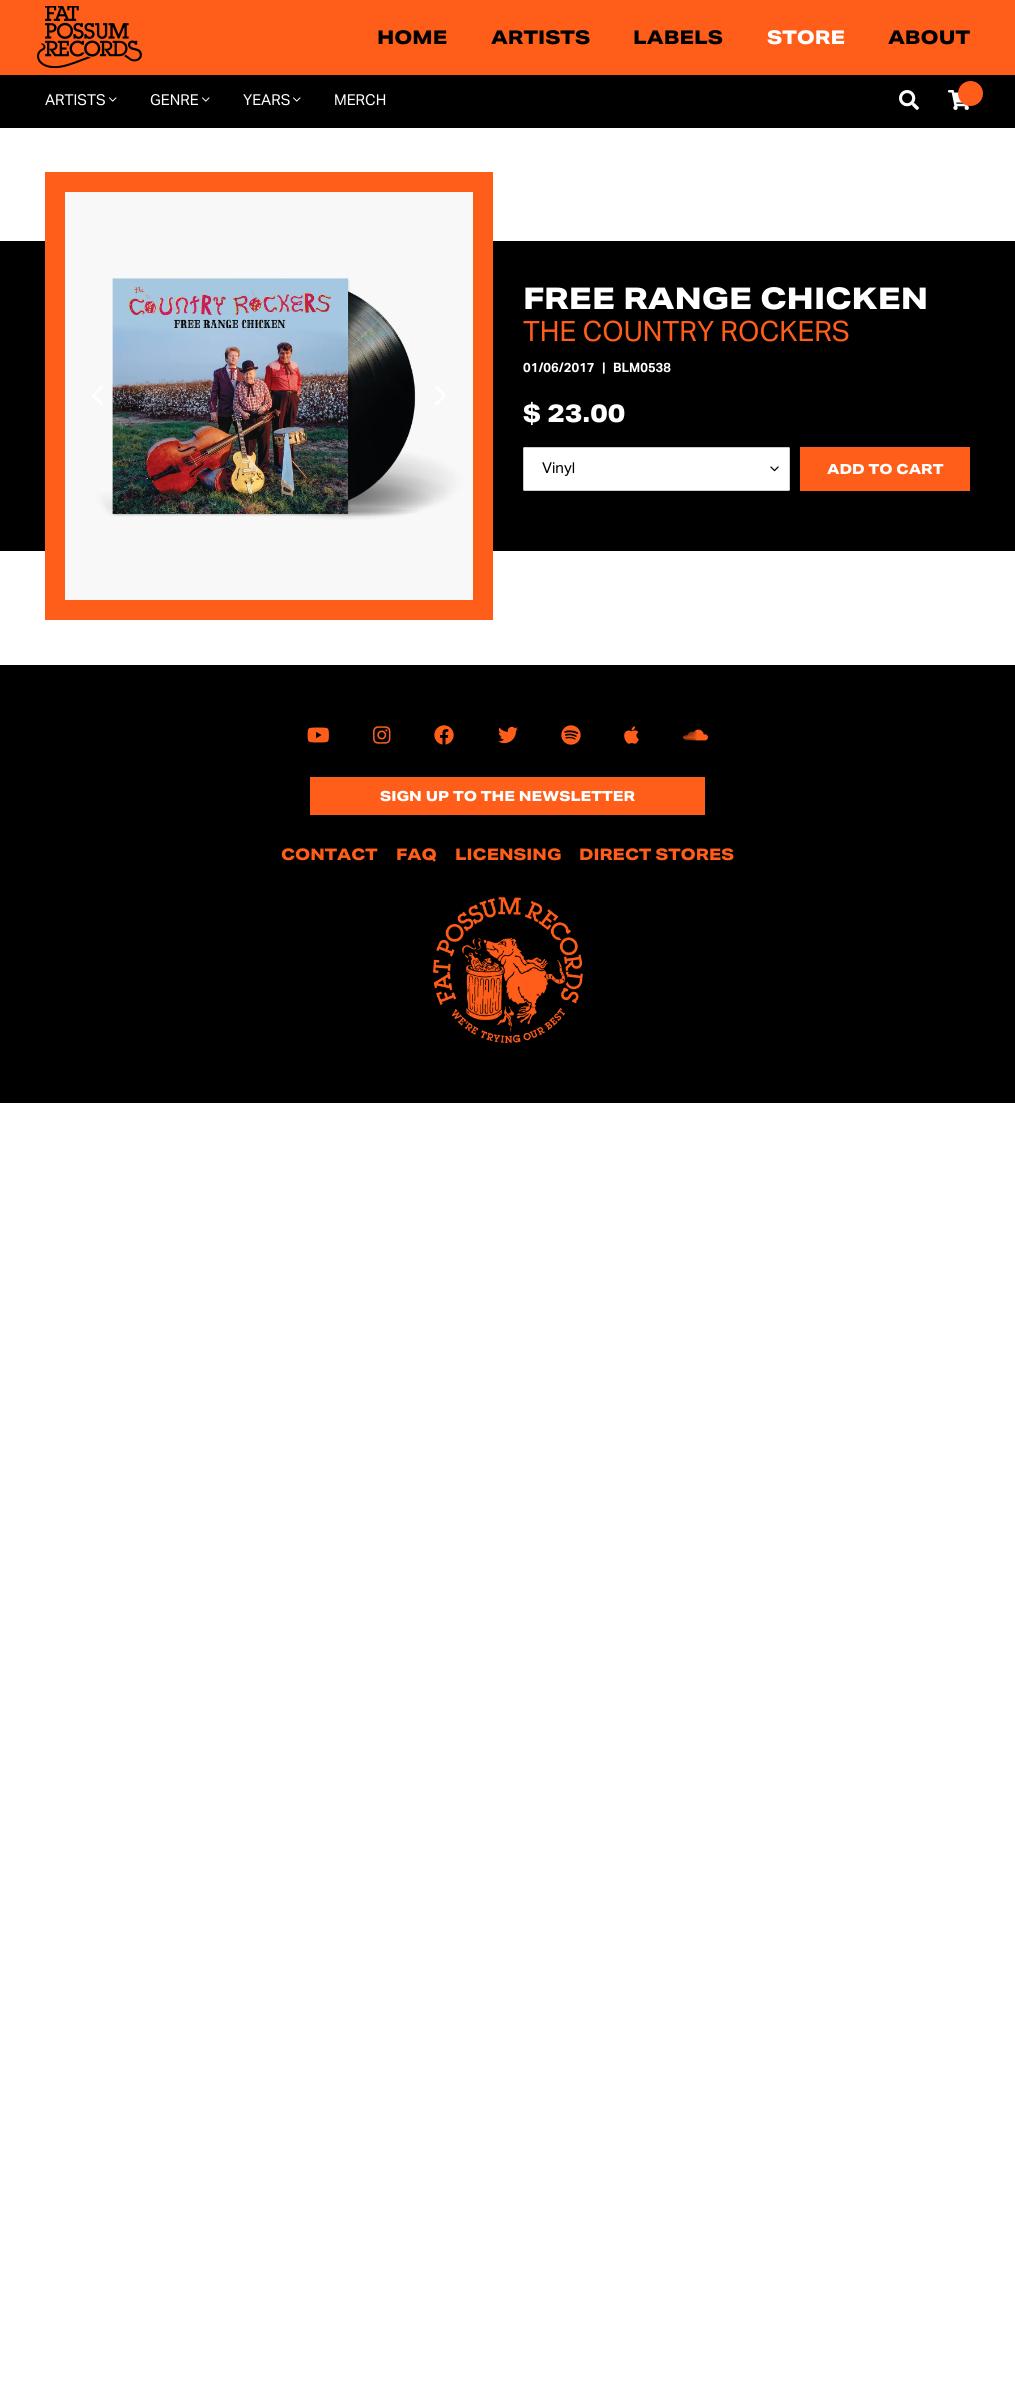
#include <cairo/cairo.h>
#include <math.h>
#include <stddef.h>

typedef struct { double x, y; const char *s; } line_t;
static cairo_t *cr;

static void rgb(unsigned color)
{
	cairo_set_source_rgb(cr, (color >> 16) / 255.0, (color >> 8 & 255) / 255.0, (color & 255) / 255.0);
}

static void rrect(double x, double y, double w, double h, double r)
{
	cairo_new_sub_path(cr);
	cairo_arc(cr, x + w - r, y + h - r, r, 0, M_PI / 2);
	cairo_arc(cr, x + r, y + h - r, r, M_PI / 2, M_PI);
	cairo_arc(cr, x + r, y + r, r, M_PI, 1.5 * M_PI);
	cairo_arc(cr, x + w - r, y + r, r, 1.5 * M_PI, 2 * M_PI);
	cairo_close_path(cr);
}

static void image(const char *path, double x, double y, double w, double h)
{
	cairo_surface_t *image = cairo_image_surface_create_from_png(path);
	cairo_save(cr);
	cairo_set_source_surface(cr, image, x, y);
	cairo_rectangle(cr, x, y, w, h);
	cairo_fill(cr);
	cairo_restore(cr);
	cairo_surface_destroy(image);
}

int main(void) {
	cairo_surface_t *surface = cairo_image_surface_create(CAIRO_FORMAT_RGB24, 1015, 2395);
	cr = cairo_create(surface);
	cairo_font_options_t *options = cairo_font_options_create();
	cairo_font_options_set_hint_metrics(options, CAIRO_HINT_METRICS_OFF);
	cairo_font_options_set_hint_style(options, CAIRO_HINT_STYLE_NONE);
	cairo_set_font_options(cr, options);
	cairo_set_miter_limit(cr, 4);
	rgb(0xffffff);
	cairo_paint(cr);
	rgb(0xff5e1a);
	cairo_rectangle(cr, 0, 0, 1015, 75);
	cairo_fill(cr);
	image("img/1.png", 37, 6, 105, 62);
	rgb(0x000000);
	cairo_rectangle(cr, 0, 75, 1015, 53);
	cairo_fill(cr);
	image("img/2.png", 109, 97, 8, 5);
	image("img/2.png", 202, 97, 8, 5);
	image("img/2.png", 293, 97, 8, 5);
	image("img/3.png", 899, 90, 20, 20);
	image("img/4.png", 948, 90, 21, 20);
	rgb(0xff5e1a);
	cairo_arc(cr, 970.5, 93.5, 12.5, 0, 2 * M_PI);
	cairo_fill(cr);
	rgb(0x000000);
	cairo_rectangle(cr, 0, 241, 1015, 310);
	cairo_fill(cr);
	rgb(0xff5e1a);
	cairo_rectangle(cr, 45, 172, 448, 448);
	cairo_fill(cr);
	image("img/5.png", 65, 192, 408, 408);
	image("img/6.png", 92, 386, 11, 19);
	image("img/7.png", 435, 386, 11, 19);
	rgb(0xffffff);
	rrect(523, 447, 267, 44, 2);
	cairo_fill(cr);
	image("img/8.png", 770, 466, 9, 6);
	rrect(523.5, 447.5, 266, 43, 1.5);
	rgb(0xcccccc);
	cairo_set_line_width(cr, 1);
	cairo_stroke(cr);
	rgb(0xff5e1a);
	cairo_rectangle(cr, 800, 447, 170, 44);
	cairo_fill(cr);
	rgb(0x000000);
	cairo_rectangle(cr, 0, 665, 1015, 438);
	cairo_fill(cr);
	image("img/9.png", 307, 727, 22, 16);
	image("img/10.png", 373, 726, 18, 18);
	image("img/11.png", 434, 725, 20, 20);
	image("img/12.png", 498, 726, 20, 18);
	image("img/13.png", 561, 725, 20, 20);
	image("img/14.png", 624, 726, 15, 18);
	image("img/15.png", 683, 729, 25, 12);
	rgb(0xff5e1a);
	cairo_rectangle(cr, 310, 777, 395, 38);
	cairo_fill(cr);
	image("img/16.png", 433, 897, 150, 146);
	cairo_select_font_face(cr, "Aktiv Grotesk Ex", CAIRO_FONT_SLANT_NORMAL, CAIRO_FONT_WEIGHT_BOLD);
	cairo_set_font_size(cr, 19);
	rgb(0x000000);
	{
		static const line_t items[] = {
			{377, 44, "HOME"},
			{491, 44, "ARTISTS"},
			{633, 44, "LABELS"},
		};
		for (size_t i = 0; i < sizeof items / sizeof *items; i++) {
			cairo_move_to(cr, items[i].x, items[i].y);
			cairo_show_text(cr, items[i].s);
		}
	}
	rgb(0xffffff);
	cairo_move_to(cr, 767, 44);
	cairo_show_text(cr, "STORE");
	rgb(0x000000);
	cairo_move_to(cr, 888, 44);
	cairo_show_text(cr, "ABOUT");
	cairo_select_font_face(cr, "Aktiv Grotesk", CAIRO_FONT_SLANT_NORMAL, CAIRO_FONT_WEIGHT_NORMAL);
	cairo_set_font_size(cr, 15);
	rgb(0xffffff);
	{
		static const line_t items[] = {
			{45, 105, "ARTISTS"},
			{150, 105, "GENRE"},
			{243, 105, "YEARS"},
			{334, 105, "MERCH"},
		};
		for (size_t i = 0; i < sizeof items / sizeof *items; i++) {
			cairo_move_to(cr, items[i].x, items[i].y);
			cairo_show_text(cr, items[i].s);
		}
	}
	cairo_select_font_face(cr, "Aktiv Grotesk Ex", CAIRO_FONT_SLANT_NORMAL, CAIRO_FONT_WEIGHT_BOLD);
	cairo_set_font_size(cr, 30);
	cairo_move_to(cr, 523, 309);
	cairo_show_text(cr, "FREE RANGE CHICKEN");
	cairo_select_font_face(cr, "Aktiv Grotesk", CAIRO_FONT_SLANT_NORMAL, CAIRO_FONT_WEIGHT_NORMAL);
	cairo_set_font_size(cr, 28);
	rgb(0xff5e1a);
	cairo_move_to(cr, 523, 341);
	cairo_show_text(cr, "THE COUNTRY ROCKERS");
	cairo_select_font_face(cr, "Aktiv Grotesk", CAIRO_FONT_SLANT_NORMAL, CAIRO_FONT_WEIGHT_BOLD);
	cairo_set_font_size(cr, 13);
	rgb(0xffffff);
	{
		static const line_t items[] = {
			{523, 372, "01/06/2017"},
			{602, 372, "|"},
			{613, 372, "BLM0538"},
		};
		for (size_t i = 0; i < sizeof items / sizeof *items; i++) {
			cairo_move_to(cr, items[i].x, items[i].y);
			cairo_show_text(cr, items[i].s);
		}
	}
	cairo_select_font_face(cr, "Aktiv Grotesk Ex", CAIRO_FONT_SLANT_NORMAL, CAIRO_FONT_WEIGHT_BOLD);
	cairo_set_font_size(cr, 25);
	cairo_move_to(cr, 523, 422);
	cairo_show_text(cr, "$ 23.00");
	cairo_select_font_face(cr, "Aktiv Grotesk", CAIRO_FONT_SLANT_NORMAL, CAIRO_FONT_WEIGHT_NORMAL);
	cairo_set_font_size(cr, 15);
	rgb(0x000000);
	cairo_move_to(cr, 542, 473);
	cairo_show_text(cr, "Vinyl");
	cairo_select_font_face(cr, "Aktiv Grotesk Ex", CAIRO_FONT_SLANT_NORMAL, CAIRO_FONT_WEIGHT_BOLD);
	cairo_set_font_size(cr, 14);
	rgb(0xffffff);
	cairo_move_to(cr, 827, 474);
	cairo_show_text(cr, "ADD TO CART");
	cairo_move_to(cr, 380, 801);
	cairo_show_text(cr, "SIGN UP TO THE NEWSLETTER");
	cairo_set_font_size(cr, 16);
	rgb(0xff5e1a);
	{
		static const line_t items[] = {
			{281, 860, "CONTACT"},
			{396, 860, "FAQ"},
			{455, 860, "LICENSING"},
			{579, 860, "DIRECT STORES"},
		};
		for (size_t i = 0; i < sizeof items / sizeof *items; i++) {
			cairo_move_to(cr, items[i].x, items[i].y);
			cairo_show_text(cr, items[i].s);
		}
	}
	cairo_surface_write_to_png(surface, "page.png");
	cairo_font_options_destroy(options);
	cairo_destroy(cr);
	cairo_surface_destroy(surface);
	return 0;
}
